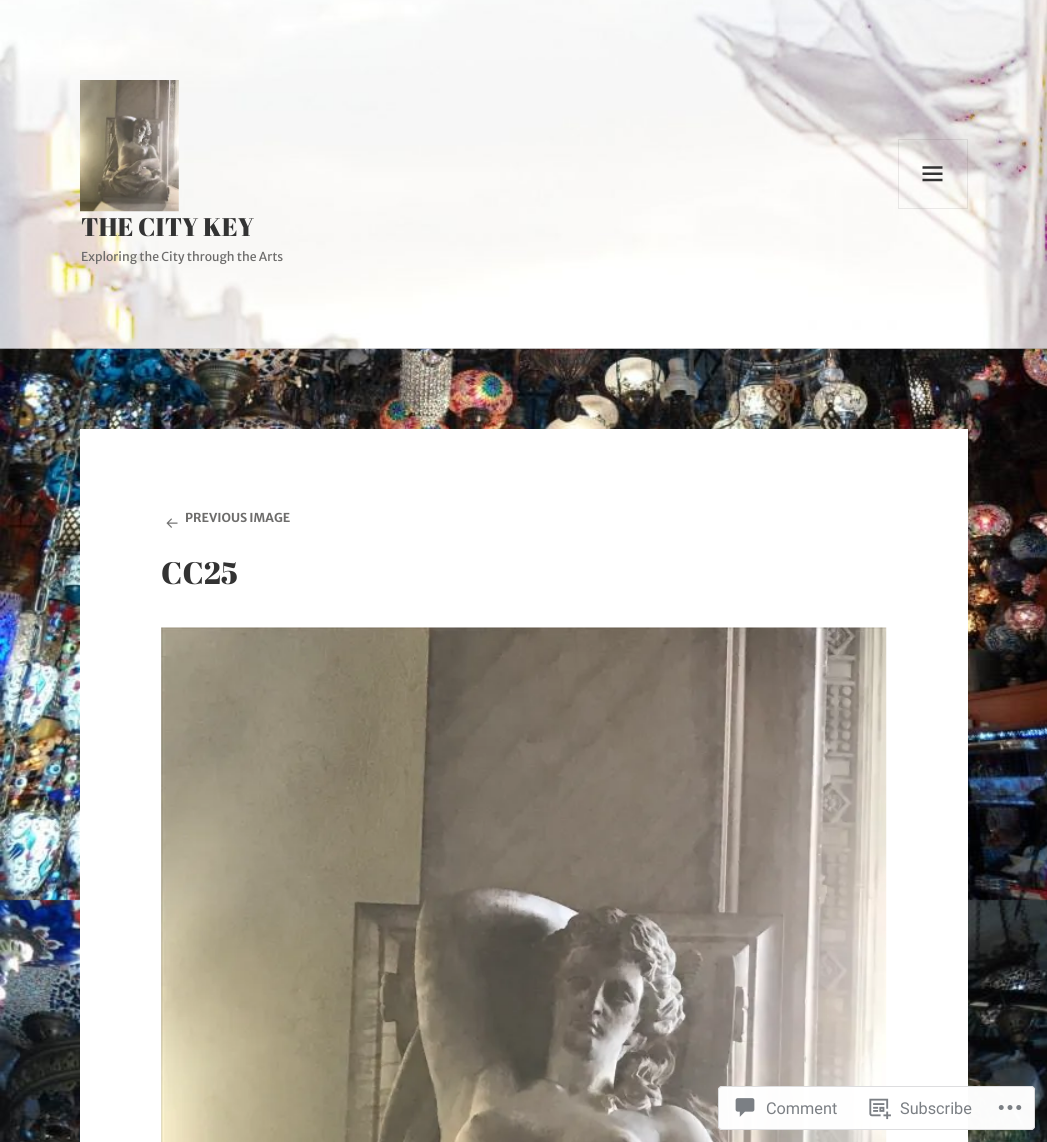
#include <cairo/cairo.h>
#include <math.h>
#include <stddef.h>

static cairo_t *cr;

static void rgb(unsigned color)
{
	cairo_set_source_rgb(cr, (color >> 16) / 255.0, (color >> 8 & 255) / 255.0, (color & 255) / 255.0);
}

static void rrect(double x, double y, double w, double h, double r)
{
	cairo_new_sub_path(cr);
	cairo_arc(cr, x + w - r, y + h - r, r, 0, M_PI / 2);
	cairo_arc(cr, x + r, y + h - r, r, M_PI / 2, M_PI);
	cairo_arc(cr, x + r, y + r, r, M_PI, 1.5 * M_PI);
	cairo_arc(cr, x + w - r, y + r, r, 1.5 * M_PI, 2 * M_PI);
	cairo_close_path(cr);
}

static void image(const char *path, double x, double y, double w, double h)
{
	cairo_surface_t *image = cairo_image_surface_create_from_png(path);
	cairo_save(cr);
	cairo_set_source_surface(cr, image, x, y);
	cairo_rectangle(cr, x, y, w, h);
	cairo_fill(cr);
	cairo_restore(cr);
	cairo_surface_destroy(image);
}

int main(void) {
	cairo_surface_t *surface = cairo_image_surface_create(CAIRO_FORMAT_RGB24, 1047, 1142);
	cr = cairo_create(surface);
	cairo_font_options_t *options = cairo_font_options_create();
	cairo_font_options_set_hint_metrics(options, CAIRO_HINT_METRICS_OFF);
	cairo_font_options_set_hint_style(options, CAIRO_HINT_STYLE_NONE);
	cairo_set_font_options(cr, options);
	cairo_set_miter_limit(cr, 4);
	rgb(0xffffff);
	cairo_paint(cr);
	image("img/1.png", 0, 348, 1047, 794);
	image("img/2.png", 0, 0, 1047, 349);
	cairo_set_source_rgba(cr, 0.2, 0.2, 0.2, 0.1);
	cairo_rectangle(cr, 0, 348, 1047, 1);
	cairo_fill(cr);
	image("img/3.png", 80, 80, 99, 132);
	cairo_rectangle(cr, 898.5, 139.5, 69, 69);
	cairo_set_line_width(cr, 1);
	cairo_stroke(cr);
	image("img/4.png", 922, 166, 21, 16);
	rgb(0xffffff);
	cairo_rectangle(cr, 80, 429, 888, 713);
	cairo_fill(cr);
	image("img/5.png", 166, 518, 12, 10);
	image("img/6.png", 161, 627, 726, 515);
	cairo_set_source_rgba(cr, 1, 1, 1, 0.98);
	rrect(718, 1086, 317, 44, 4);
	cairo_fill(cr);
	rrect(718.5, 1086.5, 316, 43, 3.5);
	cairo_set_source_rgba(cr, 0.863, 0.863, 0.871, 0.98);
	cairo_stroke(cr);
	image("img/7.png", 735, 1098, 20, 19);
	image("img/8.png", 869, 1098, 22, 22);
	image("img/9.png", 998, 1105, 24, 5);
	cairo_select_font_face(cr, "Abril Fatface", CAIRO_FONT_SLANT_NORMAL, CAIRO_FONT_WEIGHT_NORMAL);
	cairo_set_font_size(cr, 25.5);
	rgb(0x333333);
	cairo_move_to(cr, 81, 236);
	cairo_show_text(cr, "THE CITY KEY");
	cairo_select_font_face(cr, "Merriweather Sans", CAIRO_FONT_SLANT_NORMAL, CAIRO_FONT_WEIGHT_NORMAL);
	cairo_set_font_size(cr, 12.25);
	rgb(0x6d6c6b);
	cairo_move_to(cr, 81, 261);
	cairo_show_text(cr, "Exploring the City through the Arts");
	cairo_select_font_face(cr, "Merriweather Sans", CAIRO_FONT_SLANT_NORMAL, CAIRO_FONT_WEIGHT_BOLD);
	cairo_move_to(cr, 185, 522);
	cairo_show_text(cr, "PREVIOUS IMAGE");
	cairo_select_font_face(cr, "Abril Fatface", CAIRO_FONT_SLANT_NORMAL, CAIRO_FONT_WEIGHT_NORMAL);
	cairo_set_font_size(cr, 31);
	rgb(0x333333);
	cairo_move_to(cr, 161, 584);
	cairo_show_text(cr, "CC25");
	cairo_select_font_face(cr, "Roboto", CAIRO_FONT_SLANT_NORMAL, CAIRO_FONT_WEIGHT_NORMAL);
	cairo_set_font_size(cr, 16.25);
	rgb(0x7b7f84);
	cairo_move_to(cr, 766, 1114);
	cairo_show_text(cr, "Comment");
	cairo_move_to(cr, 900, 1114);
	cairo_show_text(cr, "Subscribe");
	cairo_surface_write_to_png(surface, "page.png");
	cairo_font_options_destroy(options);
	cairo_destroy(cr);
	cairo_surface_destroy(surface);
	return 0;
}
